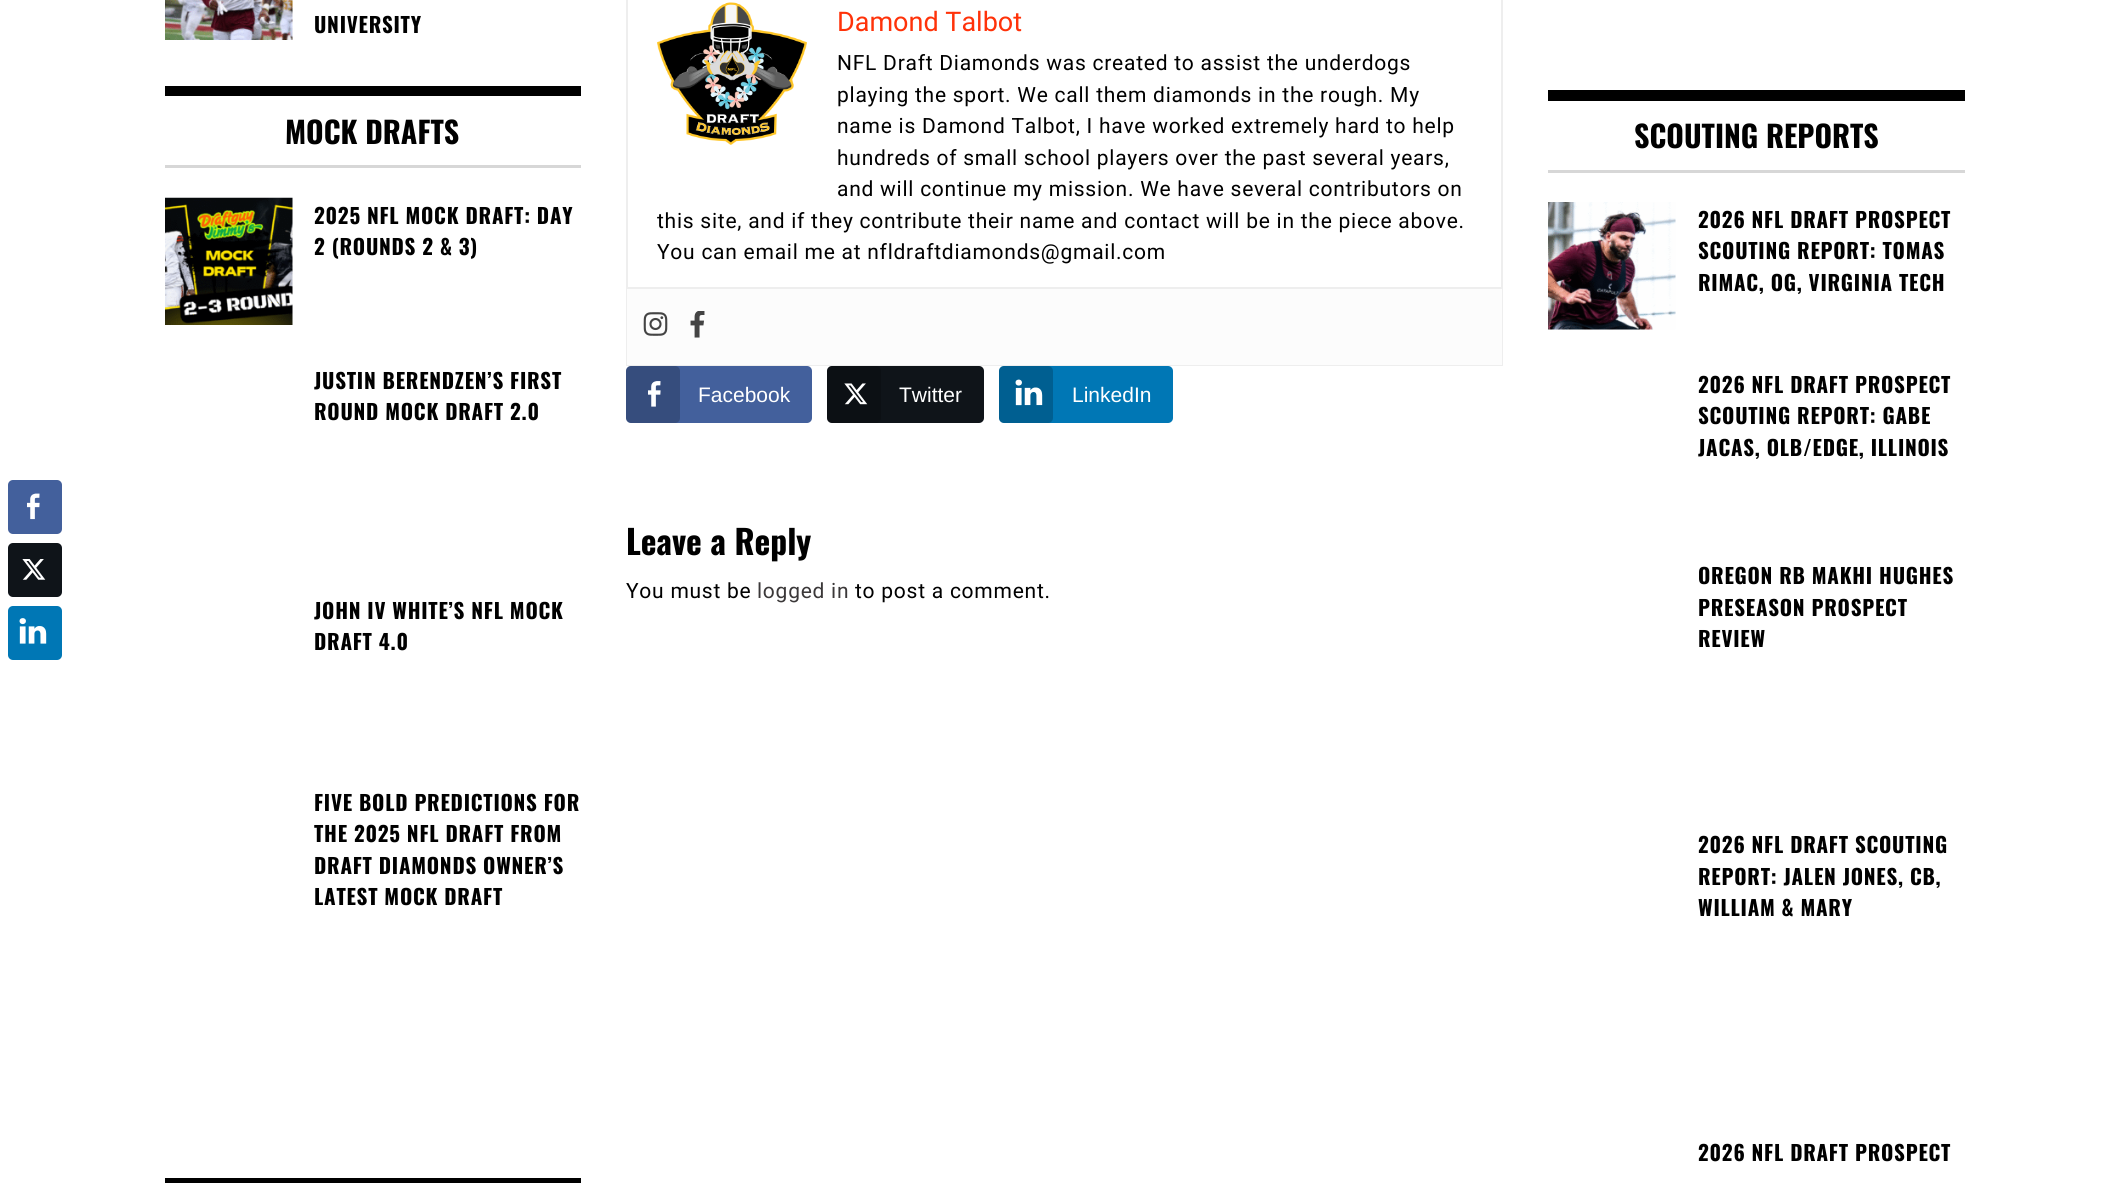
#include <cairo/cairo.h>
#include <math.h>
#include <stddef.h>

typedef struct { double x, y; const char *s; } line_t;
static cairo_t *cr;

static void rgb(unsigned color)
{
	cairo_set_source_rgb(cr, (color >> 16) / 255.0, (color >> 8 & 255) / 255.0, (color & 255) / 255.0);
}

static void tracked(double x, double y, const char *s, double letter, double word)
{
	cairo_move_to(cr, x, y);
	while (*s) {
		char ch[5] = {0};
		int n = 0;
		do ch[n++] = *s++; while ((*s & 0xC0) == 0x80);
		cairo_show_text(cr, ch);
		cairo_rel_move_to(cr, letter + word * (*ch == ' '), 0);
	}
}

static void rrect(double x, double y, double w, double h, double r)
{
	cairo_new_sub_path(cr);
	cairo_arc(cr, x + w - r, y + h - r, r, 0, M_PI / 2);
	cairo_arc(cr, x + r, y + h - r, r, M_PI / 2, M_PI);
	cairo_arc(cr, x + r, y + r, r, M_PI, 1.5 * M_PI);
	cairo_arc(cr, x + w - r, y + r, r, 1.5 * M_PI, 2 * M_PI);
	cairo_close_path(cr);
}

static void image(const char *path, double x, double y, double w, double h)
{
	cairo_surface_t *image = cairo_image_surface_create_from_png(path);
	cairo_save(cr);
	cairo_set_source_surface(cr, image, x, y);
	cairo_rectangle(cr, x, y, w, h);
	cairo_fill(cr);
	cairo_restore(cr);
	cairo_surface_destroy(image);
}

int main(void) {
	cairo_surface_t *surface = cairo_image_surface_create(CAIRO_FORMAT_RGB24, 2128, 1183);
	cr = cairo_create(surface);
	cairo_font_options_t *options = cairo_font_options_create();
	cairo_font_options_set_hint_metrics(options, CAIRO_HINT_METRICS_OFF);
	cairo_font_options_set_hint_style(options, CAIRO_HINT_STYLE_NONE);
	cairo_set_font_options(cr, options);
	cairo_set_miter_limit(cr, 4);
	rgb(0xffffff);
	cairo_paint(cr);
	rgb(0x43609c);
	rrect(8, 480, 54, 54, 5);
	cairo_fill(cr);
	image("img/1.png", 27, 493, 13, 27);
	rgb(0x0f1419);
	rrect(8, 543, 54, 54, 5);
	cairo_fill(cr);
	image("img/2.png", 22, 559, 24, 21);
	rgb(0x0077b5);
	rrect(8, 606, 54, 54, 5);
	cairo_fill(cr);
	image("img/3.png", 19, 618, 28, 26);
	image("img/4.png", 165, 0, 128, 40);
	rgb(0x000000);
	cairo_rectangle(cr, 165, 86, 416, 10);
	cairo_fill(cr);
	rgb(0xd7d7d7);
	cairo_rectangle(cr, 165, 165, 416, 3);
	cairo_fill(cr);
	image("img/5.png", 165, 197, 128, 128);
	rgb(0x000000);
	cairo_rectangle(cr, 165, 1178, 416, 5);
	cairo_fill(cr);
	cairo_rectangle(cr, 627, -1, 875, 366);
	rgb(0xeeeeee);
	cairo_stroke(cr);
	image("img/6.png", 657, 2, 150, 143);
	rgb(0xfcfcfc);
	cairo_rectangle(cr, 627, 289, 875, 76);
	cairo_fill(cr);
	rgb(0xeeeeee);
	cairo_rectangle(cr, 627, 287, 875, 2);
	cairo_fill(cr);
	image("img/7.png", 643, 312, 25, 24);
	image("img/8.png", 690, 311, 15, 27);
	rgb(0x43609c);
	rrect(626, 366, 186, 57, 5);
	cairo_fill(cr);
	cairo_set_source_rgba(cr, 0, 0, 0, 0.2);
	rrect(626, 366, 54, 57, 5);
	cairo_fill(cr);
	image("img/9.png", 648, 381, 13, 26);
	rgb(0x0f1419);
	rrect(827, 366, 157, 57, 5);
	cairo_fill(cr);
	cairo_set_source_rgba(cr, 0, 0, 0, 0.2);
	rrect(827, 366, 54, 57, 5);
	cairo_fill(cr);
	image("img/10.png", 844, 383, 24, 22);
	rgb(0x0077b5);
	rrect(999, 366, 174, 57, 5);
	cairo_fill(cr);
	cairo_set_source_rgba(cr, 0, 0, 0, 0.2);
	rrect(999, 366, 54, 57, 5);
	cairo_fill(cr);
	image("img/11.png", 1015, 379, 28, 27);
	rgb(0x000000);
	cairo_rectangle(cr, 1548, 90, 417, 11);
	cairo_fill(cr);
	rgb(0xd7d7d7);
	cairo_rectangle(cr, 1548, 170, 417, 3);
	cairo_fill(cr);
	image("img/12.png", 1548, 202, 128, 128);
	cairo_select_font_face(cr, "Oswald", CAIRO_FONT_SLANT_NORMAL, CAIRO_FONT_WEIGHT_BOLD);
	cairo_set_font_size(cr, 21);
	rgb(0x000000);
	tracked(314, 33, "UNIVERSITY", 0.75, 0);
	cairo_set_font_size(cr, 30);
	cairo_move_to(cr, 285, 144);
	cairo_show_text(cr, "MOCK DRAFTS");
	cairo_set_font_size(cr, 21);
	{
		static const line_t items[] = {
			{314, 224, "2025 NFL MOCK DRAFT: DAY"},
			{314, 255, "2 (ROUNDS 2 & 3)"},
			{314, 389, "JUSTIN BERENDZEN’S FIRST"},
			{314, 420, "ROUND MOCK DRAFT 2.0"},
			{314, 619, "JOHN IV WHITE’S NFL MOCK"},
			{314, 650, "DRAFT 4.0"},
			{314, 811, "FIVE BOLD PREDICTIONS FOR"},
			{314, 842, "THE 2025 NFL DRAFT FROM"},
			{314, 874, "DRAFT DIAMONDS OWNER’S"},
			{314, 905, "LATEST MOCK DRAFT"},
		};
		for (size_t i = 0; i < sizeof items / sizeof *items; i++) {
			tracked(items[i].x, items[i].y, items[i].s, 0.75, 0);
		}
	}
	cairo_select_font_face(cr, "Roboto", CAIRO_FONT_SLANT_NORMAL, CAIRO_FONT_WEIGHT_NORMAL);
	cairo_set_font_size(cr, 27);
	rgb(0xff3209);
	cairo_move_to(cr, 837, 31);
	cairo_show_text(cr, "Damond Talbot");
	cairo_set_font_size(cr, 21);
	rgb(0x000000);
	{
		static const line_t items[] = {
			{837, 70, "NFL Draft Diamonds was created to assist the underdogs"},
			{837, 102, "playing the sport. We call them diamonds in the rough. My"},
			{837, 133, "name is Damond Talbot, I have worked extremely hard to help"},
			{837, 165, "hundreds of small school players over the past several years,"},
			{837, 196, "and will continue my mission. We have several contributors on"},
			{657, 228, "this site, and if they contribute their name and contact will be in the piece above."},
			{657, 259, "You can email me at nfldraftdiamonds@gmail.com"},
		};
		for (size_t i = 0; i < sizeof items / sizeof *items; i++) {
			tracked(items[i].x, items[i].y, items[i].s, 0.75, 0);
		}
	}
	cairo_select_font_face(cr, "Liberation Sans", CAIRO_FONT_SLANT_NORMAL, CAIRO_FONT_WEIGHT_NORMAL);
	rgb(0xffffff);
	{
		static const line_t items[] = {
			{698, 402, "Facebook"},
			{899, 402, "Twitter"},
			{1072, 402, "LinkedIn"},
		};
		for (size_t i = 0; i < sizeof items / sizeof *items; i++) {
			cairo_move_to(cr, items[i].x, items[i].y);
			cairo_show_text(cr, items[i].s);
		}
	}
	cairo_select_font_face(cr, "Oswald", CAIRO_FONT_SLANT_NORMAL, CAIRO_FONT_WEIGHT_BOLD);
	cairo_set_font_size(cr, 33.5);
	rgb(0x000000);
	cairo_move_to(cr, 626, 555);
	cairo_show_text(cr, "Leave a Reply");
	cairo_select_font_face(cr, "Roboto", CAIRO_FONT_SLANT_NORMAL, CAIRO_FONT_WEIGHT_NORMAL);
	cairo_set_font_size(cr, 21);
	tracked(626, 598, "You must be", 0.75, 0);
	rgb(0x3b3839);
	tracked(757, 598, "logged in", 0.75, 0);
	rgb(0x000000);
	tracked(855, 598, "to post a comment.", 0.75, 0);
	cairo_select_font_face(cr, "Oswald", CAIRO_FONT_SLANT_NORMAL, CAIRO_FONT_WEIGHT_BOLD);
	cairo_set_font_size(cr, 30);
	cairo_move_to(cr, 1634, 148);
	cairo_show_text(cr, "SCOUTING REPORTS");
	cairo_set_font_size(cr, 21);
	{
		static const line_t items[] = {
			{1698, 228, "2026 NFL DRAFT PROSPECT"},
			{1698, 259, "SCOUTING REPORT: TOMAS"},
			{1698, 291, "RIMAC, OG, VIRGINIA TECH"},
			{1698, 393, "2026 NFL DRAFT PROSPECT"},
			{1698, 424, "SCOUTING REPORT: GABE"},
			{1698, 456, "JACAS, OLB/EDGE, ILLINOIS"},
			{1698, 584, "OREGON RB MAKHI HUGHES"},
			{1698, 616, "PRESEASON PROSPECT"},
			{1698, 647, "REVIEW"},
			{1698, 853, "2026 NFL DRAFT SCOUTING"},
			{1698, 885, "REPORT: JALEN JONES, CB,"},
			{1698, 916, "WILLIAM & MARY"},
			{1698, 1161, "2026 NFL DRAFT PROSPECT"},
		};
		for (size_t i = 0; i < sizeof items / sizeof *items; i++) {
			tracked(items[i].x, items[i].y, items[i].s, 0.75, 0);
		}
	}
	cairo_surface_write_to_png(surface, "page.png");
	cairo_font_options_destroy(options);
	cairo_destroy(cr);
	cairo_surface_destroy(surface);
	return 0;
}
